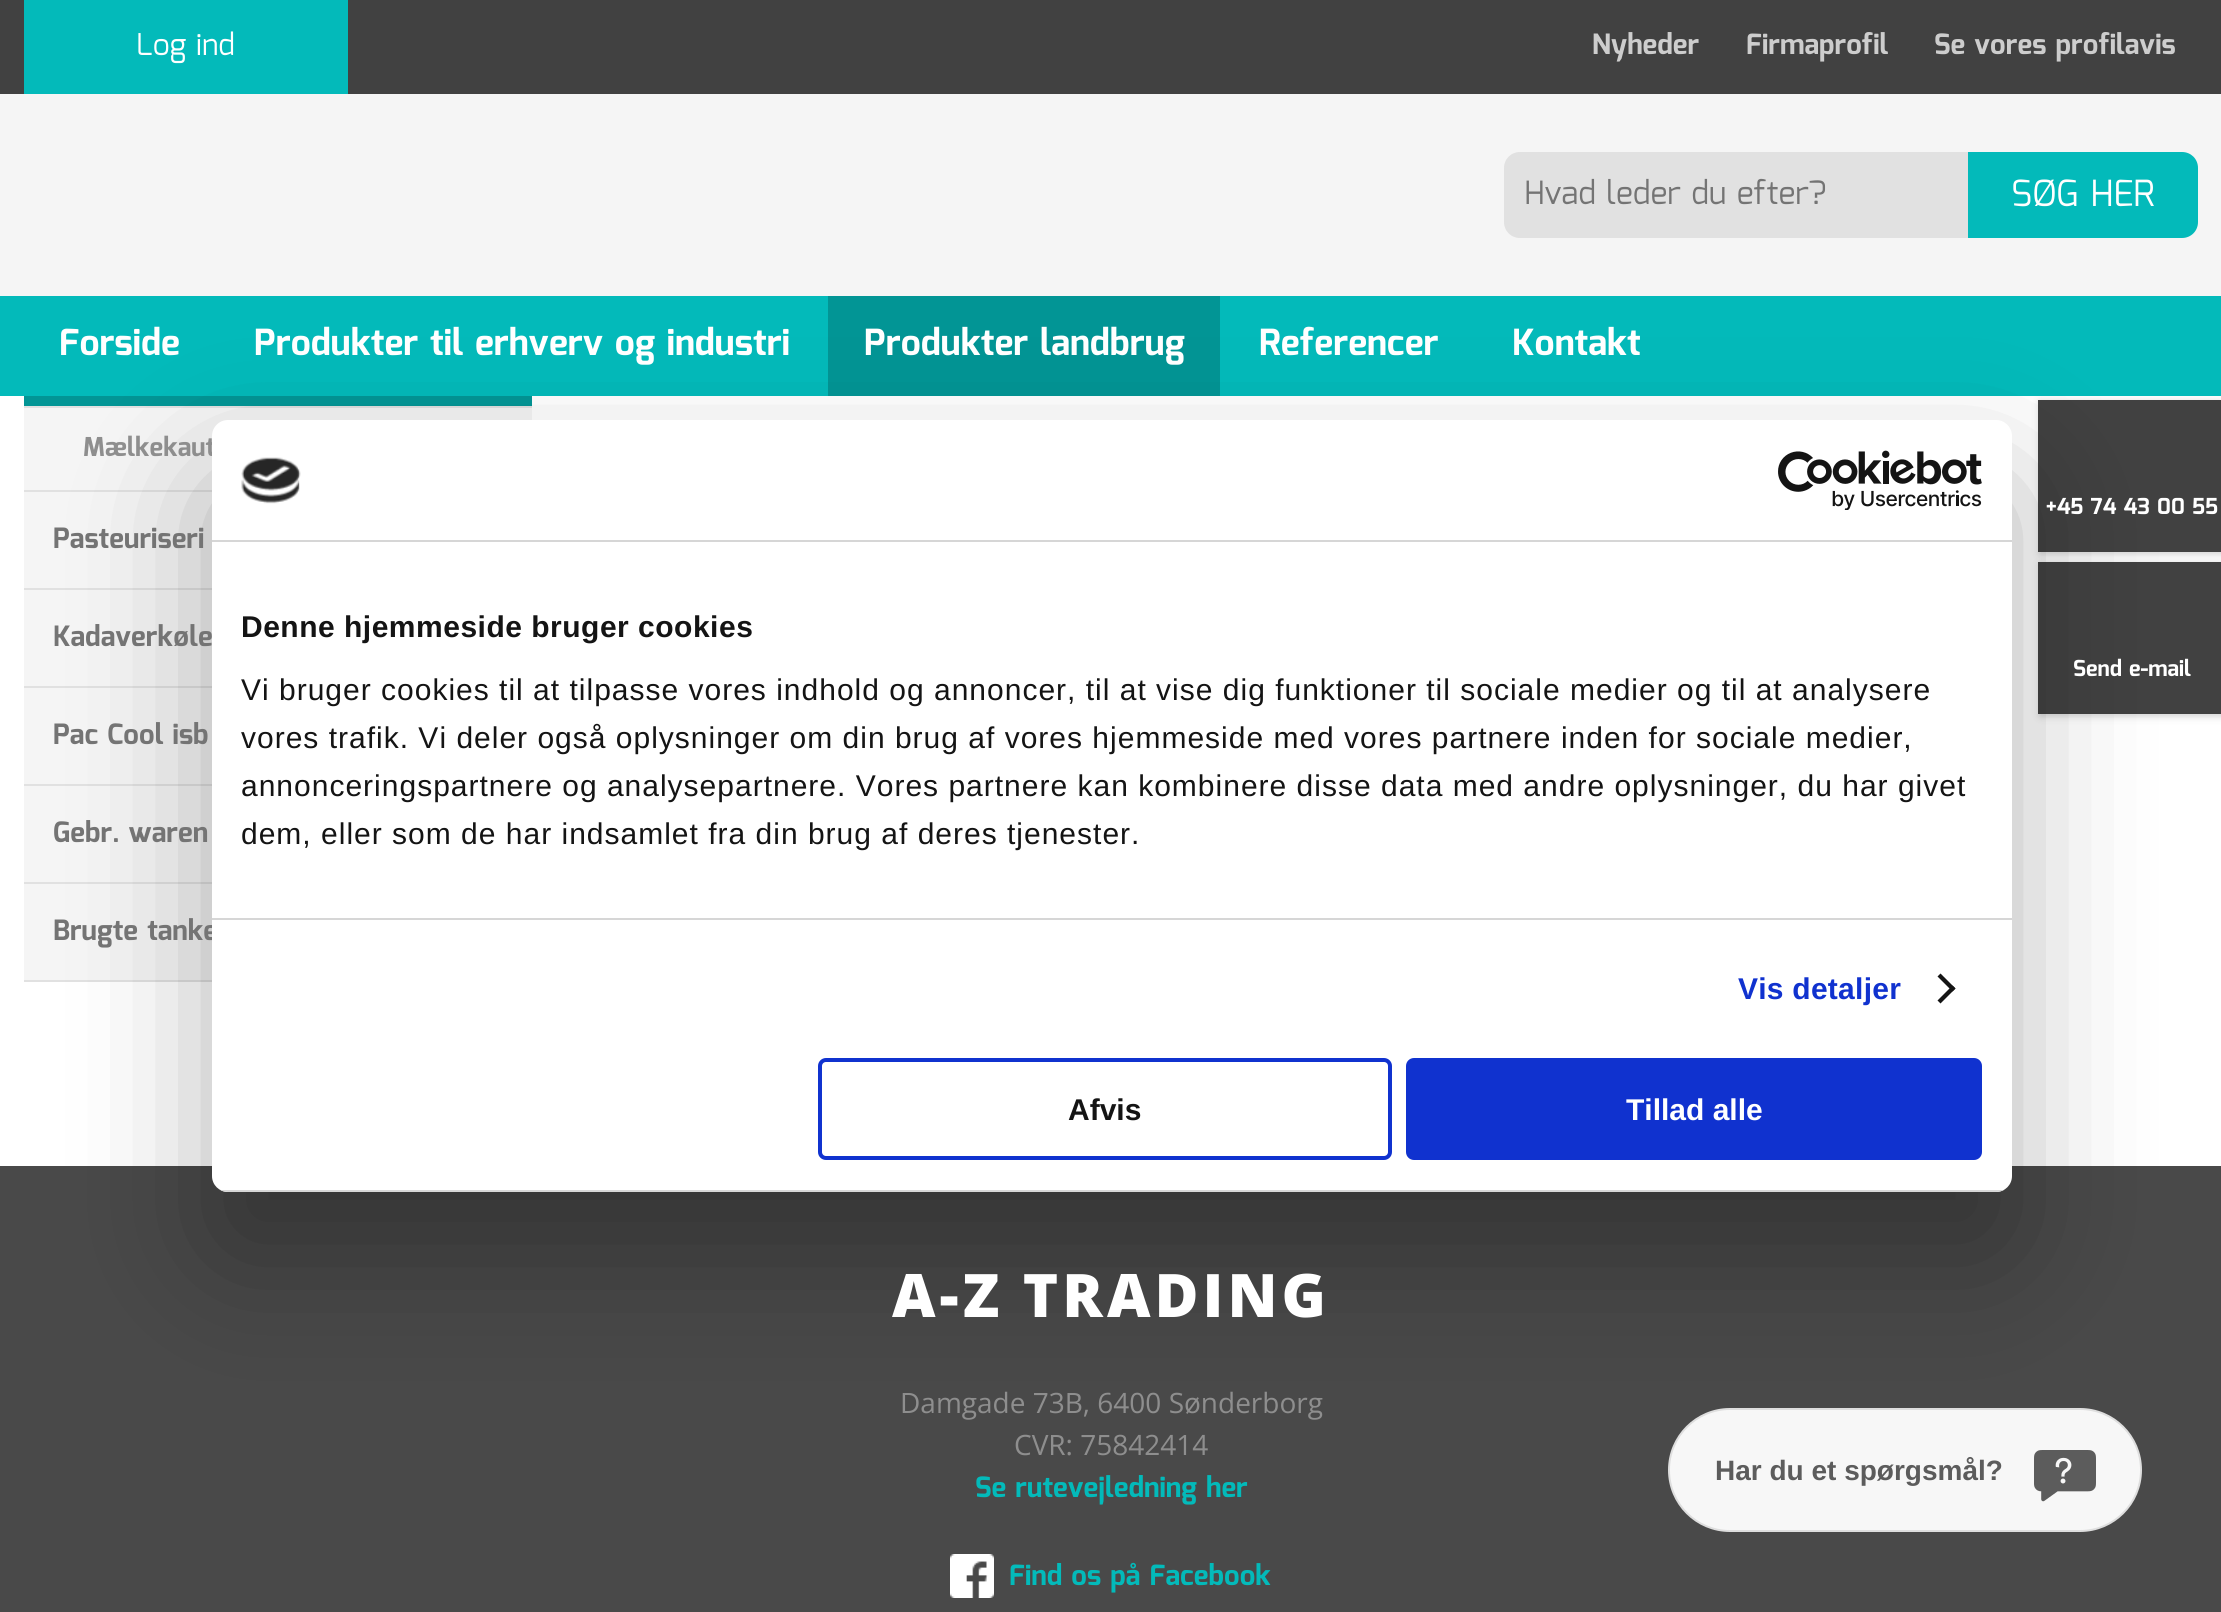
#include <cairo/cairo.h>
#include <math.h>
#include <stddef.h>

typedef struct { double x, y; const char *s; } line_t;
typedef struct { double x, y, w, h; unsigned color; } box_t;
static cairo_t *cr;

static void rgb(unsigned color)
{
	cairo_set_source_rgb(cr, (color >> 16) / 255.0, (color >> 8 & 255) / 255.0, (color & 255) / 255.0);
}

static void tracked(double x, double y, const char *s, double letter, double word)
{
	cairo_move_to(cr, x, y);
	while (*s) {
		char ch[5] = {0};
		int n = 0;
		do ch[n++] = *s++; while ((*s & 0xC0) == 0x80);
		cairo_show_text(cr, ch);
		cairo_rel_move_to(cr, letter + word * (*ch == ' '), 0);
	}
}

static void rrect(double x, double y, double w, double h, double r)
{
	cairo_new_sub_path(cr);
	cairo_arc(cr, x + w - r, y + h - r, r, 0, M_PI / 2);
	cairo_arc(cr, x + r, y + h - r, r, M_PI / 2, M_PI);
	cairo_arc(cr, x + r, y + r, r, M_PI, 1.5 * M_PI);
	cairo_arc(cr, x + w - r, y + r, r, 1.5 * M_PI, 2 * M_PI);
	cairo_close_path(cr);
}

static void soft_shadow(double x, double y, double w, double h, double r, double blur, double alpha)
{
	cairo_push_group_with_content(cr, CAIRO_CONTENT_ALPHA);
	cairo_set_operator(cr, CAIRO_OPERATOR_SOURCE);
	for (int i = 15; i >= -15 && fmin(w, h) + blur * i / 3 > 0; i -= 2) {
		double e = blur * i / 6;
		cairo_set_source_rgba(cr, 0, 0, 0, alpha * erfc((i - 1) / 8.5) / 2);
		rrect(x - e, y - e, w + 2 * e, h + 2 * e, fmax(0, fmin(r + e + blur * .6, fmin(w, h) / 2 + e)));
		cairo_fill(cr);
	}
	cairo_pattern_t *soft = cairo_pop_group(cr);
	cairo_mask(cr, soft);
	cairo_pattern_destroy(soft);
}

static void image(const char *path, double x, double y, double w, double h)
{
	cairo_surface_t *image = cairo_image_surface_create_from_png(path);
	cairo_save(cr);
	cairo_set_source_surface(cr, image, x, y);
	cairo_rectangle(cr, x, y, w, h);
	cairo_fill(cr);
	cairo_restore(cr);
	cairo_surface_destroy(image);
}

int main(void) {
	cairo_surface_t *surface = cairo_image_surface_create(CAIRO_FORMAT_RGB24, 2221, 1612);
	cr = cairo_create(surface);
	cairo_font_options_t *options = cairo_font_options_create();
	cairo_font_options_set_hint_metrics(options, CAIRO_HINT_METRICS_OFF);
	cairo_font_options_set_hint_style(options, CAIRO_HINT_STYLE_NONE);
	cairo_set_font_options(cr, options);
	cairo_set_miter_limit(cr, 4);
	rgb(0xffffff);
	cairo_paint(cr);
	{
		static const box_t items[] = {
			{0, 0, 2221, 94, 0x414141},
			{24, 0, 324, 94, 0x03baba},
			{0, 94, 2221, 202, 0xf5f5f5},
		};
		for (size_t i = 0; i < sizeof items / sizeof *items; i++) {
			rgb(items[i].color);
			cairo_rectangle(cr, items[i].x, items[i].y, items[i].w, items[i].h);
			cairo_fill(cr);
		}
	}
	rgb(0xe1e1e1);
	cairo_new_path(cr);
	cairo_move_to(cr, 1520, 152);
	cairo_line_to(cr, 1968, 152);
	cairo_line_to(cr, 1968, 238);
	cairo_line_to(cr, 1520, 238);
	cairo_curve_to(cr, 1511, 238, 1504, 231, 1504, 222);
	cairo_line_to(cr, 1504, 168);
	cairo_curve_to(cr, 1504, 159, 1511, 152, 1520, 152);
	cairo_close_path(cr);
	cairo_fill(cr);
	rgb(0x03baba);
	cairo_new_path(cr);
	cairo_move_to(cr, 1968, 152);
	cairo_line_to(cr, 2182, 152);
	cairo_curve_to(cr, 2191, 152, 2198, 159, 2198, 168);
	cairo_line_to(cr, 2198, 222);
	cairo_curve_to(cr, 2198, 231, 2191, 238, 2182, 238);
	cairo_line_to(cr, 1968, 238);
	cairo_close_path(cr);
	cairo_fill(cr);
	rgb(0x000000);
	soft_shadow(2040, 402, 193, 152, 0, 4, 0.2);
	{
		static const box_t items[] = {
			{0, 296, 2221, 100, 0x03baba},
			{828, 296, 392, 100, 0x029595},
			{24, 396, 508, 10, 0x029595},
			{24, 406, 508, 2, 0xe1e1e1},
			{24, 408, 508, 82, 0xf5f5f5},
			{24, 490, 188, 2, 0xe1e1e1},
			{24, 492, 188, 96, 0xf5f5f5},
			{24, 588, 188, 2, 0xe1e1e1},
			{24, 590, 188, 96, 0xf5f5f5},
			{24, 686, 188, 2, 0xe1e1e1},
			{24, 688, 188, 96, 0xf5f5f5},
			{24, 784, 188, 2, 0xe1e1e1},
			{24, 786, 188, 96, 0xf5f5f5},
			{24, 882, 188, 2, 0xe1e1e1},
			{24, 884, 188, 96, 0xf5f5f5},
			{24, 980, 188, 2, 0xe1e1e1},
			{2038, 400, 183, 152, 0x414141},
		};
		for (size_t i = 0; i < sizeof items / sizeof *items; i++) {
			rgb(items[i].color);
			cairo_rectangle(cr, items[i].x, items[i].y, items[i].w, items[i].h);
			cairo_fill(cr);
		}
	}
	rgb(0x000000);
	soft_shadow(2040, 564, 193, 152, 0, 4, 0.2);
	rgb(0x414141);
	cairo_rectangle(cr, 2038, 562, 183, 152);
	cairo_fill(cr);
	rgb(0x494949);
	cairo_rectangle(cr, 0, 1166, 2221, 446);
	cairo_fill(cr);
	image("img/1.png", 950, 1554, 44, 44);
	rgb(0x000000);
	soft_shadow(212, 484, 1800, 772, 16, 68, 0.3);
	rgb(0xf7f7f7);
	rrect(1669, 1409, 472, 122, 61);
	cairo_fill_preserve(cr);
	rgb(0xdedede);
	cairo_stroke(cr);
	image("img/4.png", 2034, 1450, 62, 52);
	cairo_select_font_face(cr, "Mina", CAIRO_FONT_SLANT_NORMAL, CAIRO_FONT_WEIGHT_NORMAL);
	cairo_set_font_size(cr, 30);
	rgb(0xffffff);
	cairo_move_to(cr, 136, 55);
	cairo_show_text(cr, "Log ind");
	cairo_select_font_face(cr, "Mina", CAIRO_FONT_SLANT_NORMAL, CAIRO_FONT_WEIGHT_BOLD);
	cairo_set_font_size(cr, 28);
	rgb(0xcdcdcd);
	{
		static const line_t items[] = {
			{1592, 54, "Nyheder"},
			{1746, 54, "Firmaprofil"},
			{1934, 54, "Se vores profilavis"},
		};
		for (size_t i = 0; i < sizeof items / sizeof *items; i++) {
			cairo_move_to(cr, items[i].x, items[i].y);
			cairo_show_text(cr, items[i].s);
		}
	}
	cairo_select_font_face(cr, "Mina", CAIRO_FONT_SLANT_NORMAL, CAIRO_FONT_WEIGHT_NORMAL);
	cairo_set_font_size(cr, 32);
	rgb(0x747474);
	cairo_move_to(cr, 1524, 204);
	cairo_show_text(cr, "Hvad leder du efter?");
	cairo_set_font_size(cr, 36);
	rgb(0xffffff);
	cairo_move_to(cr, 2011, 206);
	cairo_show_text(cr, "SØG HER");
	cairo_select_font_face(cr, "Mina", CAIRO_FONT_SLANT_NORMAL, CAIRO_FONT_WEIGHT_BOLD);
	{
		static const line_t items[] = {
			{59, 355, "Forside"},
			{254, 355, "Produkter til erhverv og industri"},
			{864, 355, "Produkter landbrug"},
			{1259, 355, "Referencer"},
			{1512, 355, "Kontakt"},
		};
		for (size_t i = 0; i < sizeof items / sizeof *items; i++) {
			cairo_move_to(cr, items[i].x, items[i].y);
			cairo_show_text(cr, items[i].s);
		}
	}
	cairo_set_font_size(cr, 26);
	rgb(0x8e8e8e);
	cairo_move_to(cr, 83, 456);
	cairo_show_text(cr, "Mælkekaut");
	cairo_set_font_size(cr, 28);
	rgb(0x747474);
	{
		static const line_t items[] = {
			{53, 548, "Pasteuriseri"},
			{53, 646, "Kadaverkøle"},
			{53, 744, "Pac Cool isb"},
			{53, 842, "Gebr. waren"},
			{53, 940, "Brugte tanke"},
		};
		for (size_t i = 0; i < sizeof items / sizeof *items; i++) {
			cairo_move_to(cr, items[i].x, items[i].y);
			cairo_show_text(cr, items[i].s);
		}
	}
	cairo_set_font_size(cr, 22);
	rgb(0xffffff);
	cairo_move_to(cr, 2046, 514);
	cairo_show_text(cr, "+45 74 43 00 55");
	cairo_move_to(cr, 2073, 676);
	cairo_show_text(cr, "Send e-mail");
	cairo_select_font_face(cr, "Open Sans ExtraBold", CAIRO_FONT_SLANT_NORMAL, CAIRO_FONT_WEIGHT_NORMAL);
	cairo_set_font_size(cr, 60);
	tracked(892, 1317, "A-Z TRADING", 4, 0);
	cairo_select_font_face(cr, "Open Sans", CAIRO_FONT_SLANT_NORMAL, CAIRO_FONT_WEIGHT_NORMAL);
	cairo_set_font_size(cr, 28);
	rgb(0x8e8e8e);
	cairo_move_to(cr, 900, 1413);
	cairo_show_text(cr, "Damgade 73B, 6400 Sønderborg");
	cairo_move_to(cr, 1014, 1455);
	cairo_show_text(cr, "CVR: 75842414");
	cairo_select_font_face(cr, "Mina", CAIRO_FONT_SLANT_NORMAL, CAIRO_FONT_WEIGHT_BOLD);
	rgb(0x03baba);
	cairo_move_to(cr, 975, 1497);
	cairo_show_text(cr, "Se rutevejledning her");
	cairo_move_to(cr, 1009, 1585);
	cairo_show_text(cr, "Find os på Facebook");
	rgb(0xffffff);
	rrect(212, 420, 1800, 772, 16);
	cairo_fill(cr);
	rgb(0xd6d6d6);
	cairo_rectangle(cr, 212, 540, 1800, 2);
	cairo_fill(cr);
	image("img/2.png", 241, 457, 60, 47);
	image("img/3.png", 1778, 450, 204, 60);
	cairo_rectangle(cr, 212, 918, 1800, 2);
	cairo_fill(cr);
	cairo_select_font_face(cr, "Liberation Sans", CAIRO_FONT_SLANT_NORMAL, CAIRO_FONT_WEIGHT_BOLD);
	cairo_set_font_size(cr, 30);
	rgb(0x141414);
	tracked(241, 637, "Denne hjemmeside bruger cookies", 0.5, 0);
	cairo_select_font_face(cr, "Liberation Sans", CAIRO_FONT_SLANT_NORMAL, CAIRO_FONT_WEIGHT_NORMAL);
	{
		static const line_t items[] = {
			{241, 700, "Vi bruger cookies til at tilpasse vores indhold og annoncer, til at vise dig funktioner til sociale medier og til at analysere"},
			{241, 748, "vores trafik. Vi deler også oplysninger om din brug af vores hjemmeside med vores partnere inden for sociale medier,"},
			{241, 796, "annonceringspartnere og analysepartnere. Vores partnere kan kombinere disse data med andre oplysninger, du har givet"},
			{241, 844, "dem, eller som de har indsamlet fra din brug af deres tjenester."},
		};
		for (size_t i = 0; i < sizeof items / sizeof *items; i++) {
			tracked(items[i].x, items[i].y, items[i].s, 1, 0);
		}
	}
	cairo_select_font_face(cr, "Liberation Sans", CAIRO_FONT_SLANT_NORMAL, CAIRO_FONT_WEIGHT_BOLD);
	rgb(0x1032cf);
	tracked(1738, 999, "Vis detaljer", 0.25, 0);
	rgb(0x141414);
	cairo_new_path(cr);
	cairo_move_to(cr, 1940.5, 973.5);
	cairo_line_to(cr, 1955.5, 988.5);
	cairo_line_to(cr, 1952.5, 991.5);
	cairo_line_to(cr, 1937.5, 976.5);
	cairo_close_path(cr);
	cairo_fill(cr);
	cairo_new_path(cr);
	cairo_move_to(cr, 1952.5, 985.5);
	cairo_line_to(cr, 1955.5, 988.5);
	cairo_line_to(cr, 1940.5, 1003.5);
	cairo_line_to(cr, 1937.5, 1000.5);
	cairo_close_path(cr);
	cairo_fill(cr);
	cairo_save(cr);
	rrect(212, 420, 1800, 772, 16);
	cairo_clip(cr);
	rgb(0xd6d6d6);
	cairo_rectangle(cr, 212, 1190, 1800, 2);
	cairo_fill(cr);
	cairo_restore(cr);
	rrect(820, 1060, 570, 98, 6);
	rgb(0x1032cf);
	cairo_set_line_width(cr, 4);
	cairo_stroke(cr);
	rgb(0x141414);
	cairo_move_to(cr, 1068, 1120);
	cairo_show_text(cr, "Afvis");
	rgb(0x1032cf);
	rrect(1408, 1060, 572, 98, 6);
	cairo_fill_preserve(cr);
	cairo_stroke(cr);
	rgb(0xffffff);
	cairo_move_to(cr, 1626, 1120);
	cairo_show_text(cr, "Tillad alle");
	cairo_set_font_size(cr, 28);
	rgb(0x5c5c5c);
	cairo_move_to(cr, 1715, 1480);
	cairo_show_text(cr, "Har du et spørgsmål?");
	cairo_surface_write_to_png(surface, "page.png");
	cairo_font_options_destroy(options);
	cairo_destroy(cr);
	cairo_surface_destroy(surface);
	return 0;
}
